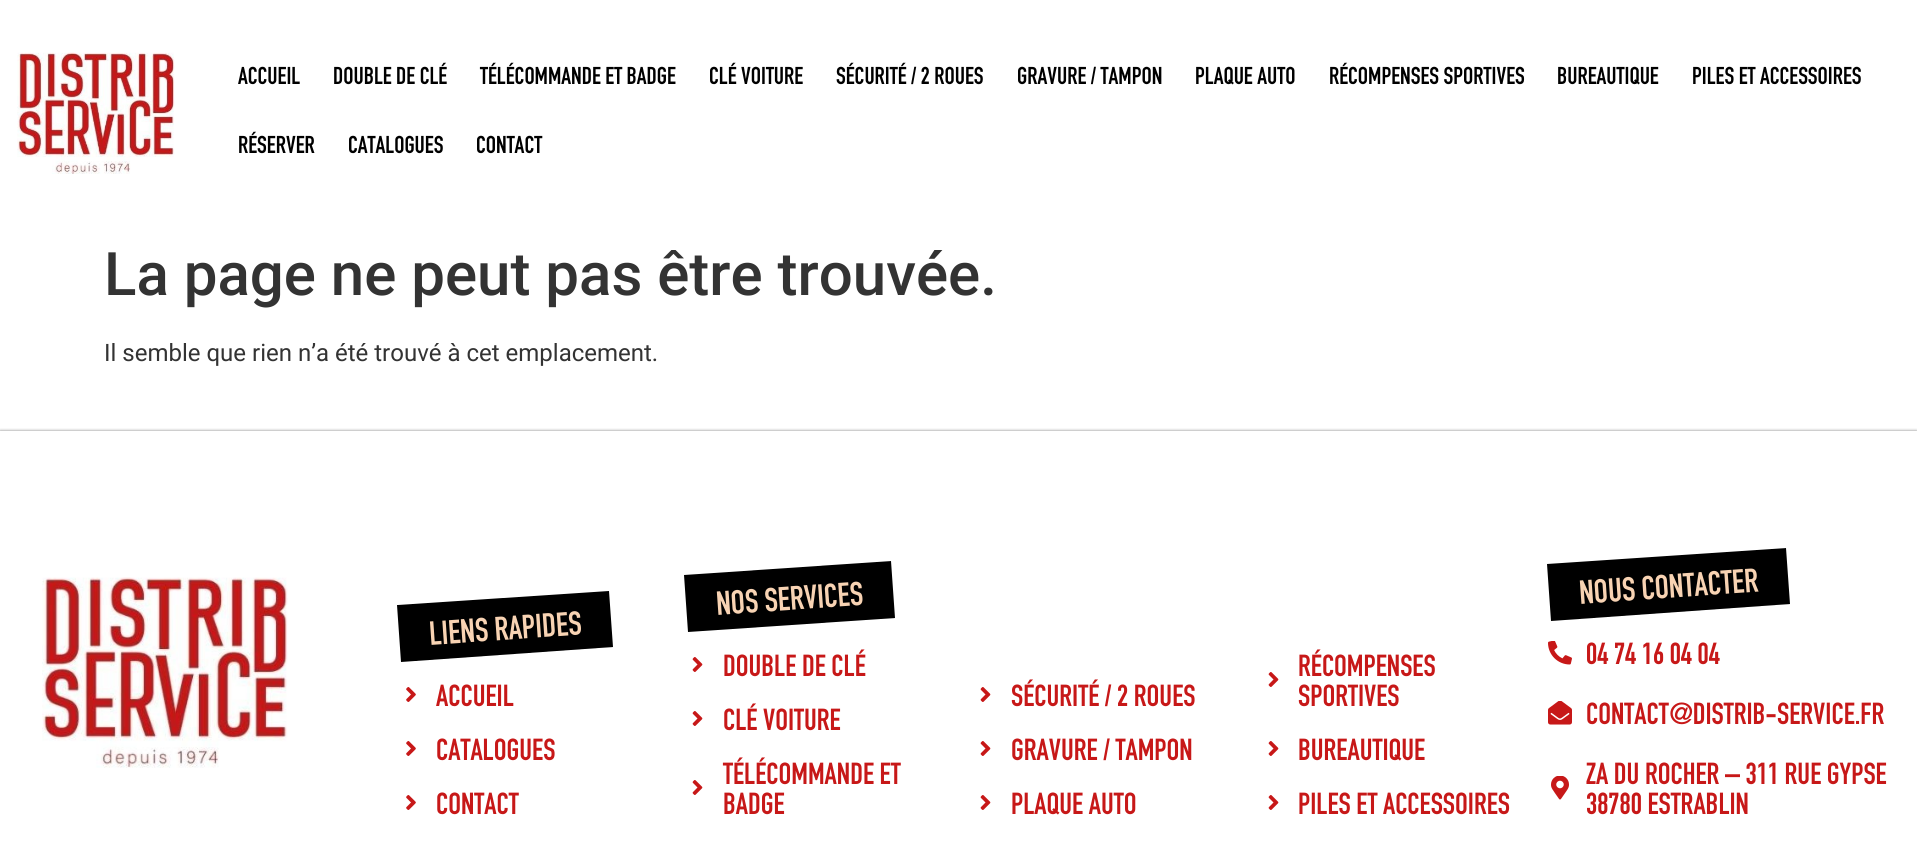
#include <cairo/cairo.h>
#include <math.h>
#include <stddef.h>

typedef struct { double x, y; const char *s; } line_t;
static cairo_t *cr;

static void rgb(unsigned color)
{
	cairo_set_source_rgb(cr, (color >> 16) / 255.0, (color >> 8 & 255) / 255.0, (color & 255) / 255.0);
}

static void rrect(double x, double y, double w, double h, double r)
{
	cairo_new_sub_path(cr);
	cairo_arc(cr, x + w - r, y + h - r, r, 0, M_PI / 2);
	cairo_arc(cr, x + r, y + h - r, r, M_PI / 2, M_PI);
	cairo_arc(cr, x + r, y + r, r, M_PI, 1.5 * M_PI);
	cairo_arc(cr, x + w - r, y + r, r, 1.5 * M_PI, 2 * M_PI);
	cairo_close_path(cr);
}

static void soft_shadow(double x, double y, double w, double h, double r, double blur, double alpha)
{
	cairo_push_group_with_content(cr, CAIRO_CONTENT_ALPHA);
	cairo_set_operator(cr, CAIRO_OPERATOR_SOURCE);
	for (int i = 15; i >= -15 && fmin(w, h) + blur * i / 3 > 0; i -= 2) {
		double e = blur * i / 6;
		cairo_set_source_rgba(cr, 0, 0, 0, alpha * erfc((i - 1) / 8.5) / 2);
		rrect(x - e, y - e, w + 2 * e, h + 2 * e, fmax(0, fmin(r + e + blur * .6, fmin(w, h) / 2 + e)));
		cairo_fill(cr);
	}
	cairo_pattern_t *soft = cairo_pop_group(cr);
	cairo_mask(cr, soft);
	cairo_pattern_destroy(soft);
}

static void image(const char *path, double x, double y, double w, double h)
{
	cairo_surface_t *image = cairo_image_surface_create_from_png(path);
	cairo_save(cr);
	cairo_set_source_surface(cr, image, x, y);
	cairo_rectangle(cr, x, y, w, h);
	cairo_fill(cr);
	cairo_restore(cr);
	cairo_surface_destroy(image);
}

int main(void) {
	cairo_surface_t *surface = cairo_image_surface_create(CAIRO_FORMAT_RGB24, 1917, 853);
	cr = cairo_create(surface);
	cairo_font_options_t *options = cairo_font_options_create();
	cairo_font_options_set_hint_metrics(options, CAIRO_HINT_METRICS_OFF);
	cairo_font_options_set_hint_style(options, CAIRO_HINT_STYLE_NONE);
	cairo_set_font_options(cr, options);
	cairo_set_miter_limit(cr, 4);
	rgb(0xffffff);
	cairo_paint(cr);
	image("img/1.png", 17, 52, 158, 122);
	cairo_save(cr);
	cairo_rectangle(cr, 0, 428, 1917, 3);
	cairo_clip(cr);
	rgb(0x000000);
	soft_shadow(0, 431, 1917, 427, 0, 1.5, 0.5);
	cairo_restore(cr);
	image("img/2.png", 42, 577, 246, 191);
	rgb(0x000000);
	cairo_new_path(cr);
	cairo_move_to(cr, 397, 605);
	cairo_line_to(cr, 609, 591);
	cairo_line_to(cr, 613, 647);
	cairo_line_to(cr, 401, 662);
	cairo_close_path(cr);
	cairo_fill(cr);
	image("img/3.png", 406, 687, 10, 15);
	image("img/3.png", 406, 741, 10, 15);
	image("img/3.png", 406, 795, 10, 15);
	cairo_new_path(cr);
	cairo_move_to(cr, 684, 575);
	cairo_line_to(cr, 891, 561);
	cairo_line_to(cr, 895, 618);
	cairo_line_to(cr, 688, 632);
	cairo_close_path(cr);
	cairo_fill(cr);
	image("img/4.png", 692, 657, 11, 15);
	image("img/4.png", 692, 711, 11, 15);
	image("img/4.png", 692, 780, 11, 15);
	image("img/4.png", 980, 687, 11, 15);
	image("img/4.png", 980, 741, 11, 15);
	image("img/4.png", 980, 795, 11, 15);
	image("img/4.png", 1268, 672, 11, 15);
	image("img/4.png", 1268, 741, 11, 15);
	image("img/4.png", 1268, 795, 11, 15);
	cairo_new_path(cr);
	cairo_move_to(cr, 1547, 564);
	cairo_line_to(cr, 1786, 548);
	cairo_line_to(cr, 1790, 604);
	cairo_line_to(cr, 1551, 621);
	cairo_close_path(cr);
	cairo_fill(cr);
	image("img/5.png", 1548, 641, 24, 24);
	image("img/6.png", 1548, 701, 24, 24);
	image("img/7.png", 1551, 776, 18, 24);
	cairo_select_font_face(cr, "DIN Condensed", CAIRO_FONT_SLANT_NORMAL, CAIRO_FONT_WEIGHT_BOLD);
	cairo_set_font_size(cr, 24);
	{
		static const line_t items[] = {
			{238, 84, "ACCUEIL"},
			{333, 84, "DOUBLE DE CLÉ"},
			{480, 84, "TÉLÉCOMMANDE ET BADGE"},
			{709, 84, "CLÉ VOITURE"},
			{836, 84, "SÉCURITÉ / 2 ROUES"},
			{1017, 84, "GRAVURE / TAMPON"},
			{1195, 84, "PLAQUE AUTO"},
			{1329, 84, "RÉCOMPENSES SPORTIVES"},
			{1557, 84, "BUREAUTIQUE"},
			{1692, 84, "PILES ET ACCESSOIRES"},
			{238, 153, "RÉSERVER"},
			{348, 153, "CATALOGUES"},
			{476, 153, "CONTACT"},
		};
		for (size_t i = 0; i < sizeof items / sizeof *items; i++) {
			cairo_move_to(cr, items[i].x, items[i].y);
			cairo_show_text(cr, items[i].s);
		}
	}
	cairo_select_font_face(cr, "Roboto Medium", CAIRO_FONT_SLANT_NORMAL, CAIRO_FONT_WEIGHT_NORMAL);
	cairo_set_font_size(cr, 60);
	rgb(0x333333);
	cairo_move_to(cr, 104, 295);
	cairo_show_text(cr, "La page ne peut pas être trouvée.");
	cairo_select_font_face(cr, "Roboto", CAIRO_FONT_SLANT_NORMAL, CAIRO_FONT_WEIGHT_NORMAL);
	cairo_set_font_size(cr, 24);
	cairo_move_to(cr, 104, 361);
	cairo_show_text(cr, "Il semble que rien n’a été trouvé à cet emplacement.");
	cairo_select_font_face(cr, "DIN Condensed", CAIRO_FONT_SLANT_NORMAL, CAIRO_FONT_WEIGHT_BOLD);
	cairo_set_font_size(cr, 33);
	rgb(0xf8d3b3);
	cairo_save(cr);
	cairo_translate(cr, 430, 645);
	cairo_rotate(cr, -4 * M_PI / 180);
	cairo_move_to(cr, 0, 0);
	cairo_show_text(cr, "LIENS RAPIDES");
	cairo_restore(cr);
	cairo_set_font_size(cr, 30);
	rgb(0xc71818);
	{
		static const line_t items[] = {
			{436, 706, "ACCUEIL"},
			{436, 760, "CATALOGUES"},
			{436, 814, "CONTACT"},
		};
		for (size_t i = 0; i < sizeof items / sizeof *items; i++) {
			cairo_move_to(cr, items[i].x, items[i].y);
			cairo_show_text(cr, items[i].s);
		}
	}
	cairo_set_font_size(cr, 33);
	rgb(0xf8d3b3);
	cairo_save(cr);
	cairo_translate(cr, 717, 615);
	cairo_rotate(cr, -4 * M_PI / 180);
	cairo_move_to(cr, 0, 0);
	cairo_show_text(cr, "NOS SERVICES");
	cairo_restore(cr);
	cairo_set_font_size(cr, 30);
	rgb(0xc71818);
	{
		static const line_t items[] = {
			{723, 676, "DOUBLE DE CLÉ"},
			{723, 730, "CLÉ VOITURE"},
			{723, 784, "TÉLÉCOMMANDE ET"},
			{723, 814, "BADGE"},
			{1011, 706, "SÉCURITÉ / 2 ROUES"},
			{1011, 760, "GRAVURE / TAMPON"},
			{1011, 814, "PLAQUE AUTO"},
			{1298, 676, "RÉCOMPENSES"},
			{1298, 706, "SPORTIVES"},
			{1298, 760, "BUREAUTIQUE"},
			{1298, 814, "PILES ET ACCESSOIRES"},
		};
		for (size_t i = 0; i < sizeof items / sizeof *items; i++) {
			cairo_move_to(cr, items[i].x, items[i].y);
			cairo_show_text(cr, items[i].s);
		}
	}
	cairo_set_font_size(cr, 33);
	rgb(0xf8d3b3);
	cairo_save(cr);
	cairo_translate(cr, 1580, 604);
	cairo_rotate(cr, -4 * M_PI / 180);
	cairo_move_to(cr, 0, 0);
	cairo_show_text(cr, "NOUS CONTACTER");
	cairo_restore(cr);
	cairo_set_font_size(cr, 30);
	rgb(0xc71818);
	{
		static const line_t items[] = {
			{1586, 664, "04 74 16 04 04"},
			{1586, 724, "CONTACT@DISTRIB-SERVICE.FR"},
			{1586, 784, "ZA DU ROCHER – 311 RUE GYPSE"},
			{1586, 814, "38780 ESTRABLIN"},
		};
		for (size_t i = 0; i < sizeof items / sizeof *items; i++) {
			cairo_move_to(cr, items[i].x, items[i].y);
			cairo_show_text(cr, items[i].s);
		}
	}
	cairo_surface_write_to_png(surface, "page.png");
	cairo_font_options_destroy(options);
	cairo_destroy(cr);
	cairo_surface_destroy(surface);
	return 0;
}
